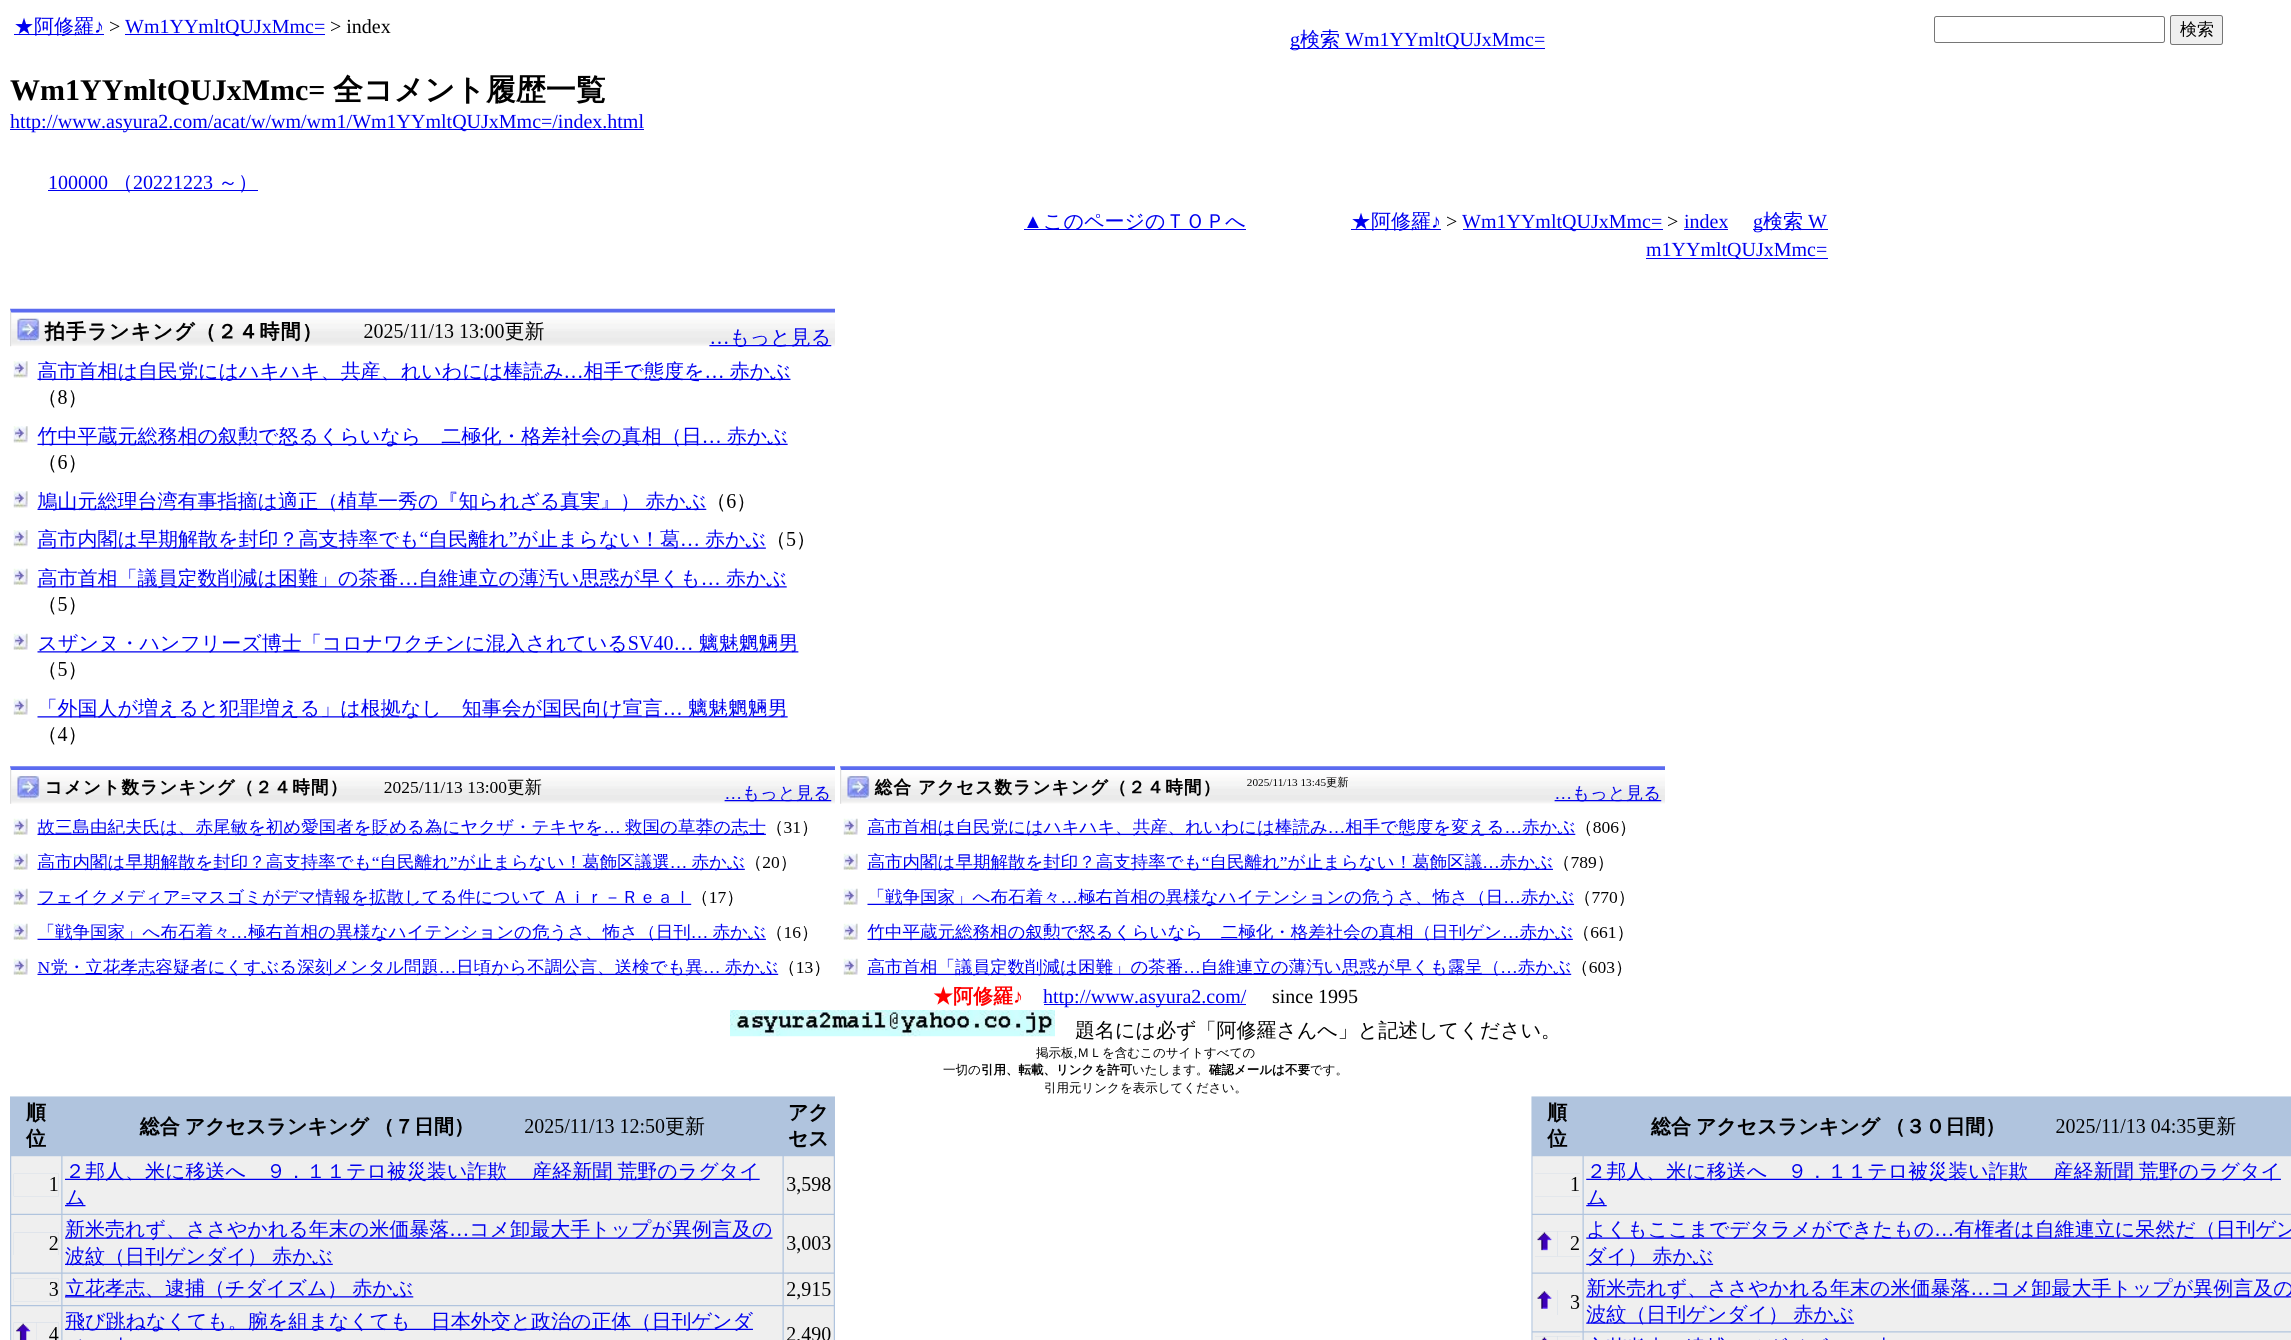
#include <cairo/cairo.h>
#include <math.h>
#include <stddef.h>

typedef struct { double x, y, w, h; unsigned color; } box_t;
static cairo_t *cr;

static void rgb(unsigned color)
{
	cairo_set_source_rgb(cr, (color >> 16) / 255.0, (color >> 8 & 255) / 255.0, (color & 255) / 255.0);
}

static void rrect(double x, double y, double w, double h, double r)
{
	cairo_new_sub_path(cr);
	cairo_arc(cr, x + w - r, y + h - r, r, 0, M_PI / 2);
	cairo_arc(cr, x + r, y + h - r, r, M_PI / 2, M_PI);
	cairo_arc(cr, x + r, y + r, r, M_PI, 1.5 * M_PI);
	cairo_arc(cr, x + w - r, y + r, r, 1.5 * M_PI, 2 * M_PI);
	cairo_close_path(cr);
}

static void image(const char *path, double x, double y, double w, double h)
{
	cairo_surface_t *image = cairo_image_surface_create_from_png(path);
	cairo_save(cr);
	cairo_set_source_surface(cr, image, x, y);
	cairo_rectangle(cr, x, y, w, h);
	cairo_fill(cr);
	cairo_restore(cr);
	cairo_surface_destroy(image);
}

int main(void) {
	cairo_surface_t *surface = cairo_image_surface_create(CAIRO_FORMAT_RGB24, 2291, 1340);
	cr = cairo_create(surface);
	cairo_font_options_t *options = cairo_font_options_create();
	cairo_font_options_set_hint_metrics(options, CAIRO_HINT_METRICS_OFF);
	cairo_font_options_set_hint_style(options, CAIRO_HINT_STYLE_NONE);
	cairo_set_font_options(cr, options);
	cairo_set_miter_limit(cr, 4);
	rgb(0xffffff);
	cairo_paint(cr);
	{
		static const box_t items[] = {
			{14, 34, 90, 1, 0x0000ee},
			{125, 34, 200, 1, 0x0000ee},
			{1290, 48, 255, 1, 0x0000ee},
		};
		for (size_t i = 0; i < sizeof items / sizeof *items; i++) {
			rgb(items[i].color);
			cairo_rectangle(cr, items[i].x, items[i].y, items[i].w, items[i].h);
			cairo_fill(cr);
		}
	}
	rrect(1934.5, 16.5, 230, 26, 2);
	rgb(0x767676);
	cairo_set_line_width(cr, 1);
	cairo_stroke(cr);
	rgb(0xefefef);
	rrect(2170.5, 15.5, 52, 29, 2);
	cairo_fill_preserve(cr);
	rgb(0x767676);
	cairo_stroke(cr);
	{
		static const box_t items[] = {
			{10, 129, 634, 1, 0x0000ee},
			{48, 190, 210, 1, 0x0000ee},
			{1024, 229, 222, 1, 0x0000ee},
			{1351, 229, 90, 1, 0x0000ee},
			{1463, 229, 200, 1, 0x0000ee},
			{1684, 229, 44, 1, 0x0000ee},
			{1753, 229, 75, 1, 0x0000ee},
			{1646, 258, 182, 1, 0x0000ee},
		};
		for (size_t i = 0; i < sizeof items / sizeof *items; i++) {
			rgb(items[i].color);
			cairo_rectangle(cr, items[i].x, items[i].y, items[i].w, items[i].h);
			cairo_fill(cr);
		}
	}
	image("img/1.png", 10, 308, 825, 437);
	image("img/2.png", 10, 766, 825, 211);
	image("img/3.png", 840, 766, 825, 210);
	cairo_rectangle(cr, 1044, 1004, 202, 1);
	cairo_fill(cr);
	image("img/4.png", 730, 1010, 325, 27);
	image("img/5.png", 10, 1096, 825, 244);
	image("img/6.png", 1531, 1096, 760, 244);
	cairo_select_font_face(cr, "WenQuanYi Zen Hei Medium", CAIRO_FONT_SLANT_NORMAL, CAIRO_FONT_WEIGHT_NORMAL);
	cairo_set_font_size(cr, 20);
	cairo_move_to(cr, 14, 33);
	cairo_show_text(cr, "★阿修羅");
	cairo_select_font_face(cr, "Liberation Serif", CAIRO_FONT_SLANT_NORMAL, CAIRO_FONT_WEIGHT_NORMAL);
	cairo_move_to(cr, 94, 33);
	cairo_show_text(cr, "♪");
	rgb(0x000000);
	cairo_move_to(cr, 109, 33);
	cairo_show_text(cr, ">");
	rgb(0x0000ee);
	cairo_move_to(cr, 125, 33);
	cairo_show_text(cr, "Wm1YYmltQUJxMmc=");
	rgb(0x000000);
	cairo_move_to(cr, 330, 33);
	cairo_show_text(cr, "> index");
	rgb(0x0000ee);
	cairo_move_to(cr, 1290, 46);
	cairo_show_text(cr, "g");
	cairo_select_font_face(cr, "WenQuanYi Zen Hei Medium", CAIRO_FONT_SLANT_NORMAL, CAIRO_FONT_WEIGHT_NORMAL);
	cairo_move_to(cr, 1300, 46);
	cairo_show_text(cr, "検索");
	cairo_select_font_face(cr, "Liberation Serif", CAIRO_FONT_SLANT_NORMAL, CAIRO_FONT_WEIGHT_NORMAL);
	cairo_move_to(cr, 1345, 46);
	cairo_show_text(cr, "Wm1YYmltQUJxMmc=");
	cairo_select_font_face(cr, "WenQuanYi Zen Hei Medium", CAIRO_FONT_SLANT_NORMAL, CAIRO_FONT_WEIGHT_NORMAL);
	cairo_set_font_size(cr, 17);
	rgb(0x000000);
	cairo_move_to(cr, 2180, 35);
	cairo_show_text(cr, "検索");
	cairo_select_font_face(cr, "Liberation Serif", CAIRO_FONT_SLANT_NORMAL, CAIRO_FONT_WEIGHT_BOLD);
	cairo_set_font_size(cr, 30);
	cairo_move_to(cr, 10, 100);
	cairo_show_text(cr, "Wm1YYmltQUJxMmc=");
	cairo_select_font_face(cr, "WenQuanYi Zen Hei", CAIRO_FONT_SLANT_NORMAL, CAIRO_FONT_WEIGHT_BOLD);
	cairo_move_to(cr, 333, 100);
	cairo_show_text(cr, "全コメント履歴一覧");
	cairo_select_font_face(cr, "Liberation Serif", CAIRO_FONT_SLANT_NORMAL, CAIRO_FONT_WEIGHT_NORMAL);
	cairo_set_font_size(cr, 20);
	rgb(0x0000ee);
	cairo_move_to(cr, 10, 128);
	cairo_show_text(cr, "http://www.asyura2.com/acat/w/wm/wm1/Wm1YYmltQUJxMmc=/index.html");
	cairo_move_to(cr, 48, 189);
	cairo_show_text(cr, "100000");
	cairo_select_font_face(cr, "WenQuanYi Zen Hei Medium", CAIRO_FONT_SLANT_NORMAL, CAIRO_FONT_WEIGHT_NORMAL);
	cairo_move_to(cr, 113, 189);
	cairo_show_text(cr, "（");
	cairo_select_font_face(cr, "Liberation Serif", CAIRO_FONT_SLANT_NORMAL, CAIRO_FONT_WEIGHT_NORMAL);
	cairo_move_to(cr, 133, 189);
	cairo_show_text(cr, "20221223");
	cairo_select_font_face(cr, "WenQuanYi Zen Hei Medium", CAIRO_FONT_SLANT_NORMAL, CAIRO_FONT_WEIGHT_NORMAL);
	cairo_move_to(cr, 218, 189);
	cairo_show_text(cr, "～）");
	cairo_select_font_face(cr, "Liberation Serif", CAIRO_FONT_SLANT_NORMAL, CAIRO_FONT_WEIGHT_NORMAL);
	cairo_move_to(cr, 1023, 228);
	cairo_show_text(cr, "▲");
	cairo_select_font_face(cr, "WenQuanYi Zen Hei Medium", CAIRO_FONT_SLANT_NORMAL, CAIRO_FONT_WEIGHT_NORMAL);
	cairo_move_to(cr, 1043, 228);
	cairo_show_text(cr, "このページのＴＯＰへ");
	cairo_move_to(cr, 1351, 228);
	cairo_show_text(cr, "★阿修羅");
	cairo_select_font_face(cr, "Liberation Serif", CAIRO_FONT_SLANT_NORMAL, CAIRO_FONT_WEIGHT_NORMAL);
	cairo_move_to(cr, 1431, 228);
	cairo_show_text(cr, "♪");
	rgb(0x000000);
	cairo_move_to(cr, 1446, 228);
	cairo_show_text(cr, ">");
	rgb(0x0000ee);
	cairo_move_to(cr, 1462, 228);
	cairo_show_text(cr, "Wm1YYmltQUJxMmc=");
	rgb(0x000000);
	cairo_move_to(cr, 1667, 228);
	cairo_show_text(cr, ">");
	rgb(0x0000ee);
	cairo_move_to(cr, 1684, 228);
	cairo_show_text(cr, "index");
	cairo_move_to(cr, 1753, 228);
	cairo_show_text(cr, "g");
	cairo_select_font_face(cr, "WenQuanYi Zen Hei Medium", CAIRO_FONT_SLANT_NORMAL, CAIRO_FONT_WEIGHT_NORMAL);
	cairo_move_to(cr, 1763, 228);
	cairo_show_text(cr, "検索");
	cairo_select_font_face(cr, "Liberation Serif", CAIRO_FONT_SLANT_NORMAL, CAIRO_FONT_WEIGHT_NORMAL);
	cairo_move_to(cr, 1808, 228);
	cairo_show_text(cr, "W");
	cairo_move_to(cr, 1646, 256);
	cairo_show_text(cr, "m1YYmltQUJxMmc=");
	cairo_select_font_face(cr, "WenQuanYi Zen Hei", CAIRO_FONT_SLANT_NORMAL, CAIRO_FONT_WEIGHT_BOLD);
	rgb(0xff0000);
	cairo_move_to(cr, 933, 1003);
	cairo_show_text(cr, "★阿修羅");
	cairo_select_font_face(cr, "Liberation Serif", CAIRO_FONT_SLANT_NORMAL, CAIRO_FONT_WEIGHT_BOLD);
	cairo_move_to(cr, 1013, 1003);
	cairo_show_text(cr, "♪");
	cairo_select_font_face(cr, "Liberation Serif", CAIRO_FONT_SLANT_NORMAL, CAIRO_FONT_WEIGHT_NORMAL);
	rgb(0x0000ee);
	cairo_move_to(cr, 1043, 1003);
	cairo_show_text(cr, "http://www.asyura2.com/");
	rgb(0x000000);
	cairo_move_to(cr, 1272, 1003);
	cairo_show_text(cr, "since 1995");
	cairo_select_font_face(cr, "WenQuanYi Zen Hei Medium", CAIRO_FONT_SLANT_NORMAL, CAIRO_FONT_WEIGHT_NORMAL);
	cairo_move_to(cr, 1075, 1037);
	cairo_show_text(cr, "題名には必ず「阿修羅さんへ」と記述してください。");
	cairo_set_font_size(cr, 12.5);
	cairo_move_to(cr, 1036, 1057);
	cairo_show_text(cr, "掲示板");
	cairo_select_font_face(cr, "Liberation Serif", CAIRO_FONT_SLANT_NORMAL, CAIRO_FONT_WEIGHT_NORMAL);
	cairo_move_to(cr, 1074, 1057);
	cairo_show_text(cr, ",");
	cairo_select_font_face(cr, "WenQuanYi Zen Hei Medium", CAIRO_FONT_SLANT_NORMAL, CAIRO_FONT_WEIGHT_NORMAL);
	cairo_move_to(cr, 1077, 1057);
	cairo_show_text(cr, "ＭＬを含むこのサイトすべての");
	cairo_move_to(cr, 943, 1074);
	cairo_show_text(cr, "一切の");
	cairo_select_font_face(cr, "WenQuanYi Zen Hei", CAIRO_FONT_SLANT_NORMAL, CAIRO_FONT_WEIGHT_BOLD);
	cairo_move_to(cr, 981, 1074);
	cairo_show_text(cr, "引用、転載、リンクを許可");
	cairo_select_font_face(cr, "WenQuanYi Zen Hei Medium", CAIRO_FONT_SLANT_NORMAL, CAIRO_FONT_WEIGHT_NORMAL);
	cairo_move_to(cr, 1132, 1074);
	cairo_show_text(cr, "いたします。");
	cairo_select_font_face(cr, "WenQuanYi Zen Hei", CAIRO_FONT_SLANT_NORMAL, CAIRO_FONT_WEIGHT_BOLD);
	cairo_move_to(cr, 1209, 1074);
	cairo_show_text(cr, "確認メールは不要");
	cairo_select_font_face(cr, "WenQuanYi Zen Hei Medium", CAIRO_FONT_SLANT_NORMAL, CAIRO_FONT_WEIGHT_NORMAL);
	cairo_move_to(cr, 1310, 1074);
	cairo_show_text(cr, "です。");
	cairo_move_to(cr, 1044, 1092);
	cairo_show_text(cr, "引用元リンクを表示してください。");
	cairo_surface_write_to_png(surface, "page.png");
	cairo_font_options_destroy(options);
	cairo_destroy(cr);
	cairo_surface_destroy(surface);
	return 0;
}
